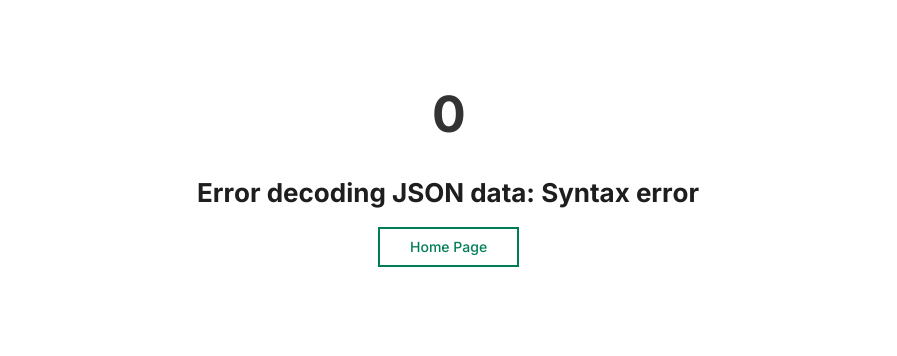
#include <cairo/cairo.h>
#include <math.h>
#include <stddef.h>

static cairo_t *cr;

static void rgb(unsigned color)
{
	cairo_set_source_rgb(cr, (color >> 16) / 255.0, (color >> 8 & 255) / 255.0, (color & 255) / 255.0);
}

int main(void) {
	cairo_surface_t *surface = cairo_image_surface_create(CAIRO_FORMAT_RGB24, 897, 356);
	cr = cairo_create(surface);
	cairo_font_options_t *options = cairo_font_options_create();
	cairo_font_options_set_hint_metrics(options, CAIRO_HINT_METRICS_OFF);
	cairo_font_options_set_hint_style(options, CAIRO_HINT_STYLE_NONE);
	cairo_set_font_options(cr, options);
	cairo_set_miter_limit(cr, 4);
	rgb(0xffffff);
	cairo_paint(cr);
	cairo_rectangle(cr, 379, 228, 139, 38);
	rgb(0x007d57);
	cairo_stroke(cr);
	cairo_select_font_face(cr, "Inter", CAIRO_FONT_SLANT_NORMAL, CAIRO_FONT_WEIGHT_BOLD);
	cairo_set_font_size(cr, 50);
	rgb(0x333333);
	cairo_move_to(cr, 432, 132);
	cairo_show_text(cr, "0");
	cairo_set_font_size(cr, 26);
	rgb(0x1e1e1e);
	cairo_move_to(cr, 197, 202);
	cairo_show_text(cr, "Error decoding JSON data: Syntax error");
	cairo_select_font_face(cr, "Inter Medium", CAIRO_FONT_SLANT_NORMAL, CAIRO_FONT_WEIGHT_NORMAL);
	cairo_set_font_size(cr, 14);
	rgb(0x007d57);
	cairo_move_to(cr, 410, 252);
	cairo_show_text(cr, "Home Page");
	cairo_surface_write_to_png(surface, "page.png");
	cairo_font_options_destroy(options);
	cairo_destroy(cr);
	cairo_surface_destroy(surface);
	return 0;
}
